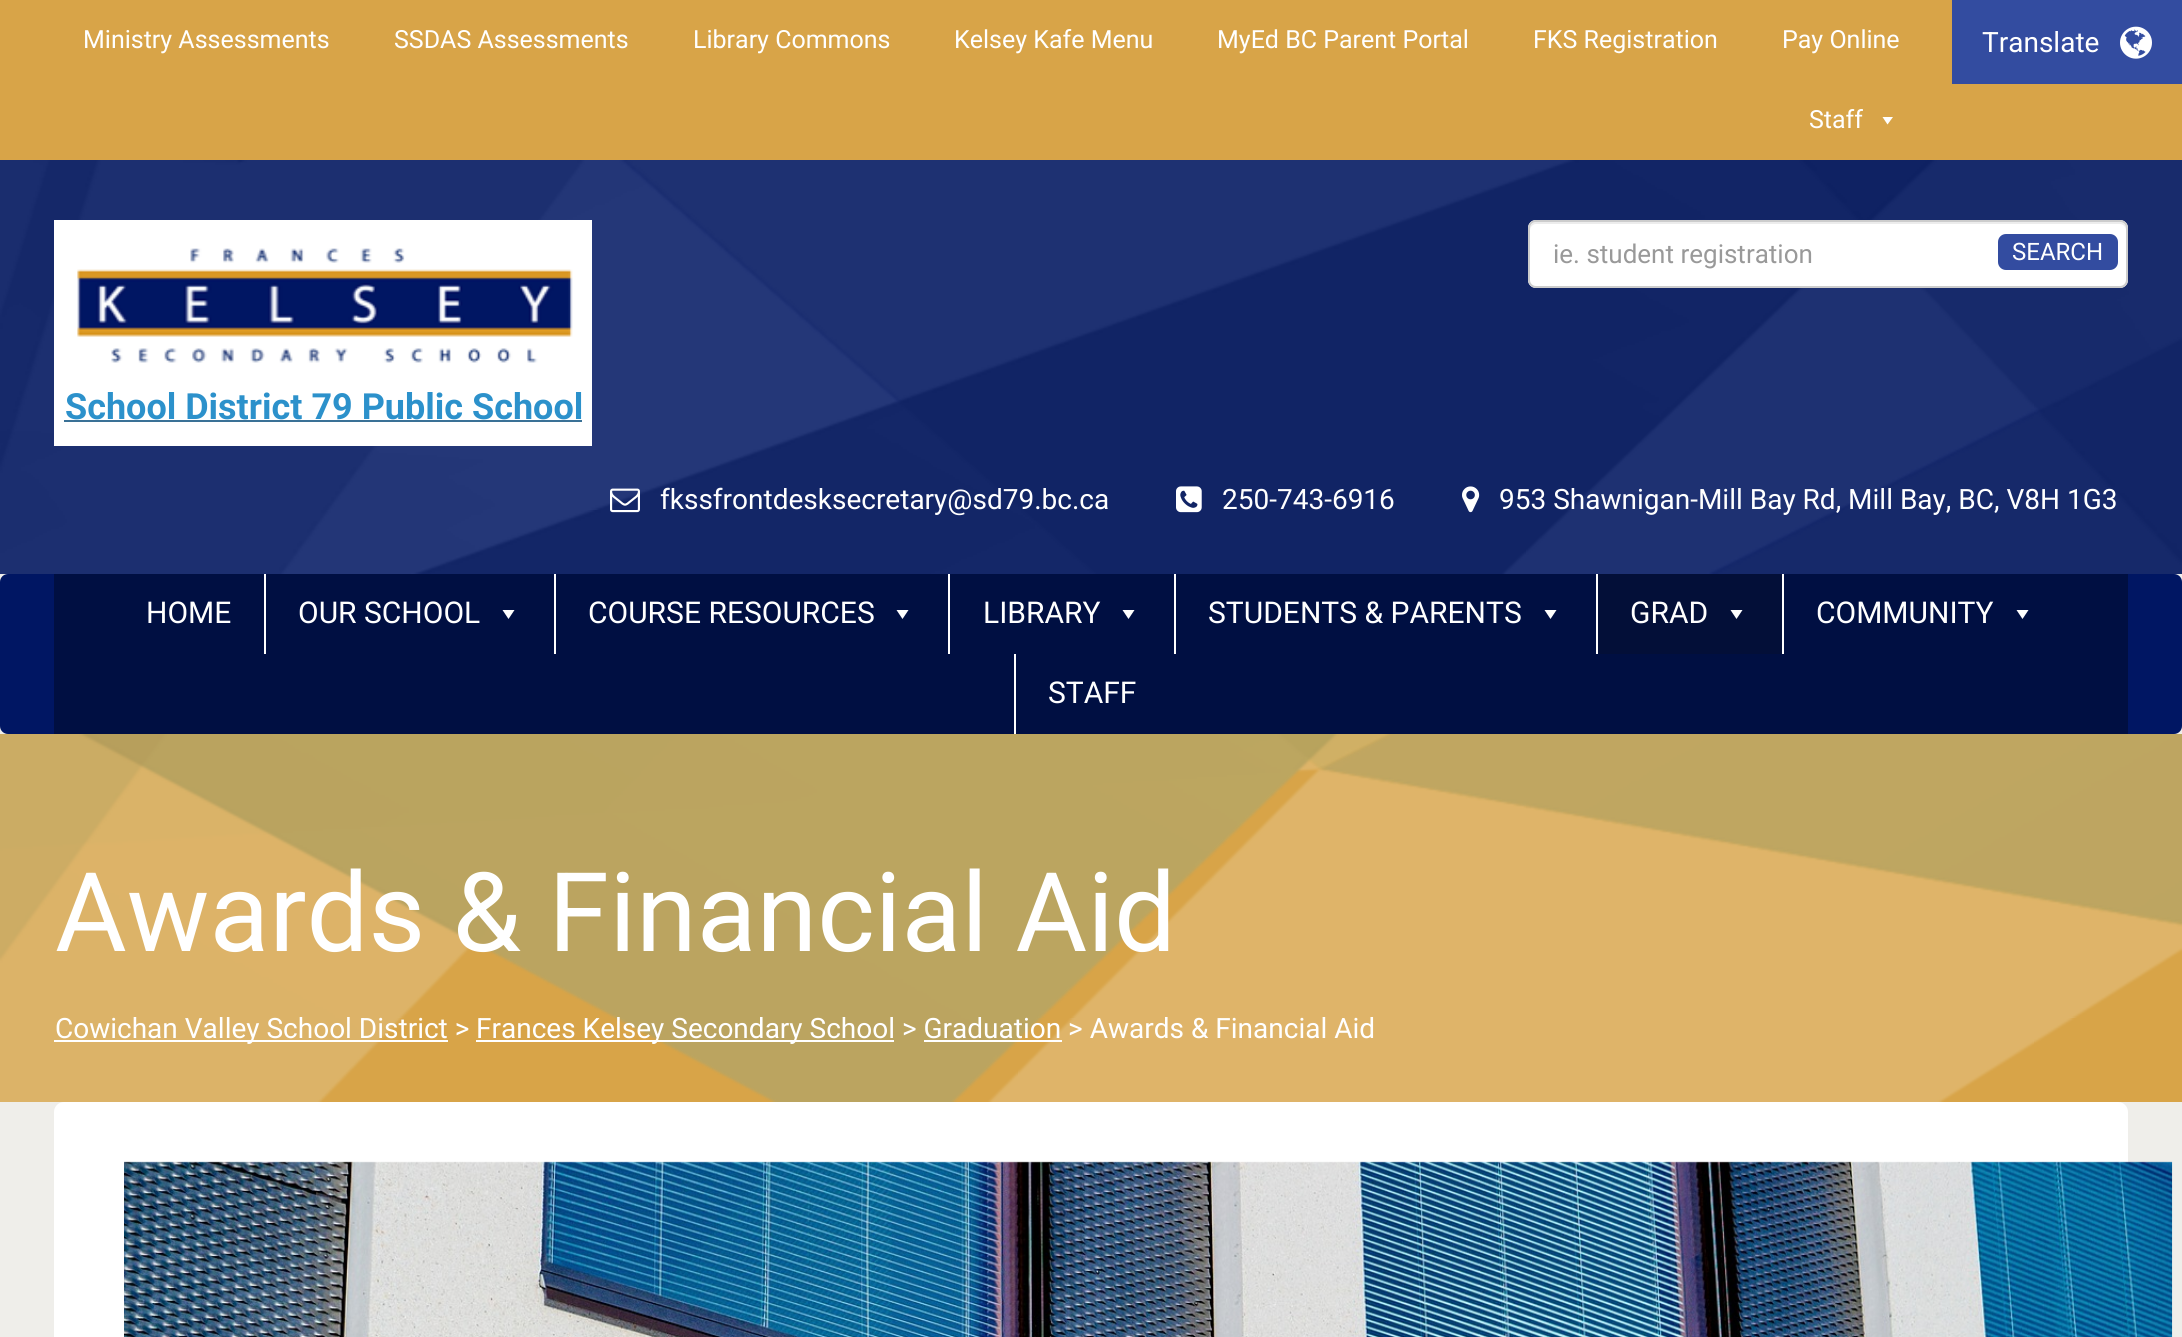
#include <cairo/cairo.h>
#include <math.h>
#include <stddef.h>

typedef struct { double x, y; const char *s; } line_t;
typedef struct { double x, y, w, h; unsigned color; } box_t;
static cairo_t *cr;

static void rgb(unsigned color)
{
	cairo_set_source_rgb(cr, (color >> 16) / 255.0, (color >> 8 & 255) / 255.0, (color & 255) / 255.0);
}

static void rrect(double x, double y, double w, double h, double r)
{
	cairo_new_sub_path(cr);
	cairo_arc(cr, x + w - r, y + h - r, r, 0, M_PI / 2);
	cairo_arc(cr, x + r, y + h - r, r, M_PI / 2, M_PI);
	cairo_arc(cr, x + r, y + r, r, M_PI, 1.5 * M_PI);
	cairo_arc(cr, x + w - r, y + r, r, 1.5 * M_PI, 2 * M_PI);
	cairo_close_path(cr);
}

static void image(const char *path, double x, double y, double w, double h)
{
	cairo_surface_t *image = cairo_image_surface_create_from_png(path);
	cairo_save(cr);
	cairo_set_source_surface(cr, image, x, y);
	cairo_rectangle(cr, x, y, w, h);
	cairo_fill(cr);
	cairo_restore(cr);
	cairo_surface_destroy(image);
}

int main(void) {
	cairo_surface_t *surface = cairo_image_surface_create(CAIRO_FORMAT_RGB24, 2182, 1337);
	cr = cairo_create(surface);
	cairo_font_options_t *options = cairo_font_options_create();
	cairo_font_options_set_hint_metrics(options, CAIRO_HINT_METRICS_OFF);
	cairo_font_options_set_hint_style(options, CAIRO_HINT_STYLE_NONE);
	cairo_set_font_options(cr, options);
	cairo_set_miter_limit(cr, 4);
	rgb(0xefeeea);
	cairo_paint(cr);
	rgb(0xd8a448);
	cairo_rectangle(cr, 0, 0, 2182, 160);
	cairo_fill(cr);
	rgb(0xffffff);
	cairo_new_path(cr);
	cairo_move_to(cr, 1893, 117);
	cairo_line_to(cr, 1887.5, 124.5);
	cairo_line_to(cr, 1882.5, 117);
	cairo_close_path(cr);
	cairo_fill(cr);
	rgb(0x334ca0);
	cairo_rectangle(cr, 1952, 0, 230, 84);
	cairo_fill(cr);
	image("img/1.png", 2120, 26, 32, 33);
	rgb(0x001663);
	cairo_rectangle(cr, 0, 160, 2182, 414);
	cairo_fill(cr);
	image("img/2.png", 0, 160, 2182, 414);
	rgb(0xffffff);
	rrect(1528, 220, 600, 68, 8);
	cairo_fill(cr);
	rgb(0xececec);
	cairo_new_path(cr);
	cairo_move_to(cr, 1536, 224);
	cairo_line_to(cr, 2120, 224);
	cairo_curve_to(cr, 2123, 224, 2126, 227, 2126, 230);
	cairo_line_to(cr, 2126, 228);
	cairo_curve_to(cr, 2126, 225, 2123, 222, 2120, 222);
	cairo_line_to(cr, 1536, 222);
	cairo_curve_to(cr, 1533, 222, 1530, 225, 1530, 228);
	cairo_line_to(cr, 1530, 230);
	cairo_curve_to(cr, 1530, 227, 1533, 224, 1536, 224);
	cairo_close_path(cr);
	cairo_fill(cr);
	rrect(1529, 221, 598, 66, 7);
	rgb(0xcccccc);
	cairo_stroke(cr);
	rgb(0x334ca0);
	rrect(1998, 234, 120, 36, 8);
	cairo_fill(cr);
	rgb(0xffffff);
	cairo_rectangle(cr, 54, 220, 538, 226);
	cairo_fill(cr);
	image("img/3.png", 77, 248, 496, 115);
	rgb(0x3a7196);
	cairo_rectangle(cr, 64, 420, 518, 2);
	cairo_fill(cr);
	image("img/4.png", 610, 488, 30, 25);
	image("img/5.png", 1176, 486, 26, 27);
	image("img/6.png", 1462, 486, 18, 27);
	rgb(0x001663);
	rrect(0, 574, 2182, 160, 8);
	cairo_fill(cr);
	rgb(0x000f42);
	cairo_rectangle(cr, 54, 574, 2074, 160);
	cairo_fill(cr);
	rgb(0xffffff);
	cairo_rectangle(cr, 264, 574, 2, 80);
	cairo_fill(cr);
	cairo_new_path(cr);
	cairo_move_to(cr, 514.5, 610);
	cairo_line_to(cr, 508.5, 619);
	cairo_line_to(cr, 502.5, 610);
	cairo_close_path(cr);
	cairo_fill(cr);
	cairo_rectangle(cr, 554, 574, 2, 80);
	cairo_fill(cr);
	cairo_new_path(cr);
	cairo_move_to(cr, 908.5, 610);
	cairo_line_to(cr, 902.5, 619);
	cairo_line_to(cr, 896.5, 610);
	cairo_close_path(cr);
	cairo_fill(cr);
	cairo_rectangle(cr, 948, 574, 2, 80);
	cairo_fill(cr);
	cairo_new_path(cr);
	cairo_move_to(cr, 1134.5, 610);
	cairo_line_to(cr, 1128.5, 619);
	cairo_line_to(cr, 1122.5, 610);
	cairo_close_path(cr);
	cairo_fill(cr);
	cairo_rectangle(cr, 1174, 574, 2, 80);
	cairo_fill(cr);
	cairo_new_path(cr);
	cairo_move_to(cr, 1556.5, 610);
	cairo_line_to(cr, 1550.5, 619);
	cairo_line_to(cr, 1544.5, 610);
	cairo_close_path(cr);
	cairo_fill(cr);
	cairo_rectangle(cr, 1596, 574, 2, 80);
	cairo_fill(cr);
	rgb(0x030f38);
	cairo_rectangle(cr, 1598, 574, 184, 80);
	cairo_fill(cr);
	rgb(0xffffff);
	cairo_new_path(cr);
	cairo_move_to(cr, 1742.5, 610);
	cairo_line_to(cr, 1736.5, 619);
	cairo_line_to(cr, 1730.5, 610);
	cairo_close_path(cr);
	cairo_fill(cr);
	cairo_rectangle(cr, 1782, 574, 2, 80);
	cairo_fill(cr);
	cairo_new_path(cr);
	cairo_move_to(cr, 2028.5, 610);
	cairo_line_to(cr, 2022.5, 619);
	cairo_line_to(cr, 2016.5, 610);
	cairo_close_path(cr);
	cairo_fill(cr);
	cairo_rectangle(cr, 1014, 654, 2, 80);
	cairo_fill(cr);
	rgb(0xd8a448);
	cairo_rectangle(cr, 0, 734, 2182, 368);
	cairo_fill(cr);
	image("img/7.png", 0, 734, 2182, 368);
	{
		static const box_t items[] = {
			{54, 1040, 394, 2, 0xffffff},
			{476, 1040, 418, 2, 0xffffff},
			{924, 1040, 138, 2, 0xffffff},
		};
		for (size_t i = 0; i < sizeof items / sizeof *items; i++) {
			rgb(items[i].color);
			cairo_rectangle(cr, items[i].x, items[i].y, items[i].w, items[i].h);
			cairo_fill(cr);
		}
	}
	cairo_new_path(cr);
	cairo_move_to(cr, 64, 1102);
	cairo_line_to(cr, 2118, 1102);
	cairo_curve_to(cr, 2123.5, 1102, 2128, 1106.5, 2128, 1112);
	cairo_line_to(cr, 2128, 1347);
	cairo_line_to(cr, 54, 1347);
	cairo_line_to(cr, 54, 1112);
	cairo_curve_to(cr, 54, 1106.5, 58.5, 1102, 64, 1102);
	cairo_close_path(cr);
	cairo_fill(cr);
	image("img/8.png", 124, 1161, 2049, 176);
	cairo_select_font_face(cr, "Roboto", CAIRO_FONT_SLANT_NORMAL, CAIRO_FONT_WEIGHT_NORMAL);
	cairo_set_font_size(cr, 25);
	{
		static const line_t items[] = {
			{83, 48, "Ministry Assessments"},
			{394, 48, "SSDAS Assessments"},
			{693, 48, "Library Commons"},
			{954, 48, "Kelsey Kafe Menu"},
			{1217, 48, "MyEd BC Parent Portal"},
			{1533, 48, "FKS Registration"},
			{1782, 48, "Pay Online"},
			{1809, 128, "Staff"},
		};
		for (size_t i = 0; i < sizeof items / sizeof *items; i++) {
			cairo_move_to(cr, items[i].x, items[i].y);
			cairo_show_text(cr, items[i].s);
		}
	}
	cairo_set_font_size(cr, 28);
	cairo_move_to(cr, 1982, 52);
	cairo_show_text(cr, "Translate");
	cairo_set_font_size(cr, 26);
	rgb(0x999999);
	cairo_move_to(cr, 1553, 263);
	cairo_show_text(cr, "ie. student registration");
	cairo_set_font_size(cr, 24);
	rgb(0xffffff);
	cairo_move_to(cr, 2012, 260);
	cairo_show_text(cr, "SEARCH");
	cairo_select_font_face(cr, "Roboto", CAIRO_FONT_SLANT_NORMAL, CAIRO_FONT_WEIGHT_BOLD);
	cairo_set_font_size(cr, 36);
	rgb(0x2c91cb);
	cairo_move_to(cr, 65, 419);
	cairo_show_text(cr, "School District 79 Public School");
	cairo_select_font_face(cr, "Roboto", CAIRO_FONT_SLANT_NORMAL, CAIRO_FONT_WEIGHT_NORMAL);
	cairo_set_font_size(cr, 28);
	rgb(0xffffff);
	{
		static const line_t items[] = {
			{660, 509, "fkssfrontdesksecretary@sd79.bc.ca"},
			{1222, 509, "250-743-6916"},
			{1499, 509, "953 Shawnigan-Mill Bay Rd, Mill Bay, BC, V8H 1G3"},
		};
		for (size_t i = 0; i < sizeof items / sizeof *items; i++) {
			cairo_move_to(cr, items[i].x, items[i].y);
			cairo_show_text(cr, items[i].s);
		}
	}
	cairo_set_font_size(cr, 30);
	{
		static const line_t items[] = {
			{146, 623, "HOME"},
			{298, 623, "OUR SCHOOL"},
			{588, 623, "COURSE RESOURCES"},
			{983, 623, "LIBRARY"},
			{1208, 623, "STUDENTS & PARENTS"},
			{1630, 623, "GRAD"},
			{1816, 623, "COMMUNITY"},
			{1048, 703, "STAFF"},
		};
		for (size_t i = 0; i < sizeof items / sizeof *items; i++) {
			cairo_move_to(cr, items[i].x, items[i].y);
			cairo_show_text(cr, items[i].s);
		}
	}
	cairo_set_font_size(cr, 110);
	cairo_move_to(cr, 55, 951);
	cairo_show_text(cr, "Awards & Financial Aid");
	cairo_set_font_size(cr, 28);
	cairo_move_to(cr, 55, 1038);
	cairo_show_text(cr, "Cowichan Valley School District >");
	cairo_move_to(cr, 476, 1038);
	cairo_show_text(cr, "Frances Kelsey Secondary School > Graduation > Awards & Financial Aid");
	cairo_surface_write_to_png(surface, "page.png");
	cairo_font_options_destroy(options);
	cairo_destroy(cr);
	cairo_surface_destroy(surface);
	return 0;
}
